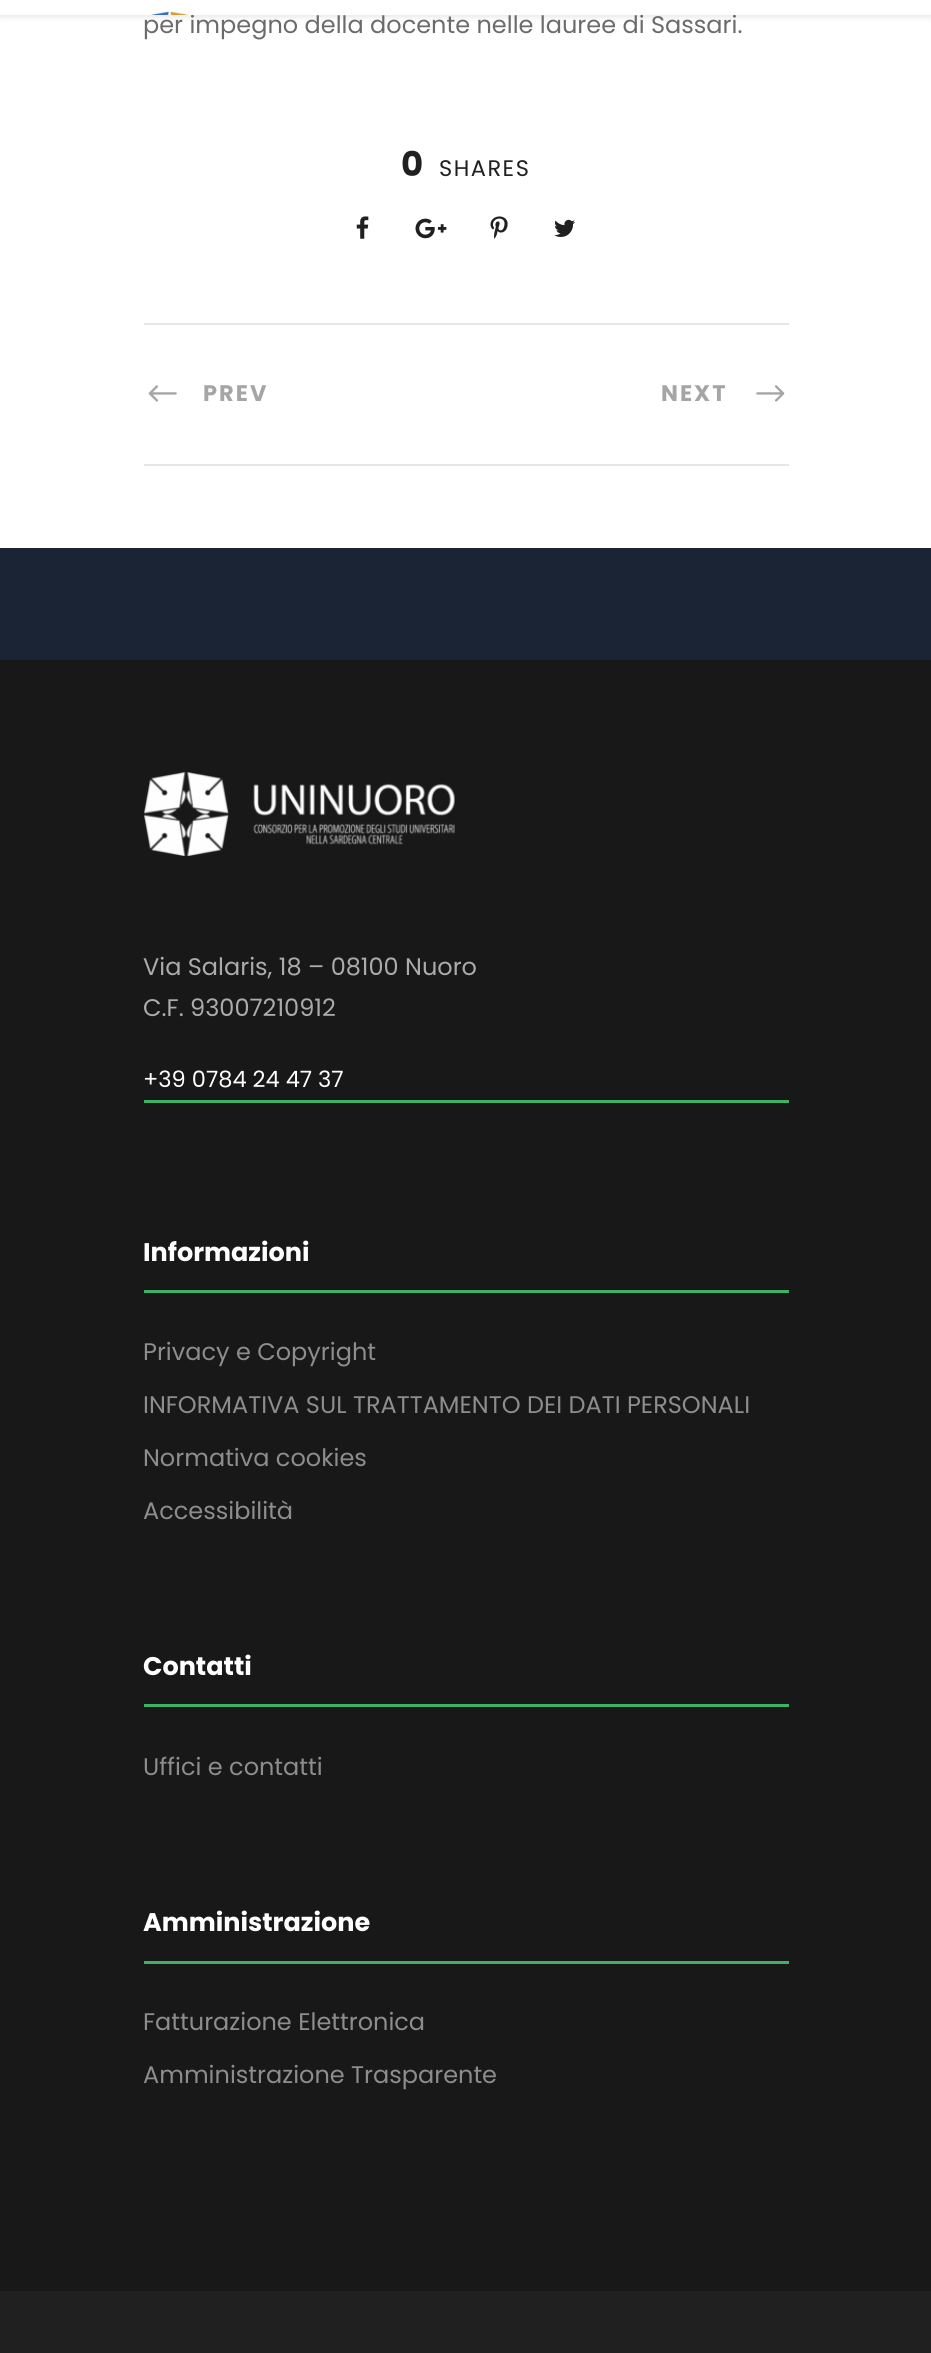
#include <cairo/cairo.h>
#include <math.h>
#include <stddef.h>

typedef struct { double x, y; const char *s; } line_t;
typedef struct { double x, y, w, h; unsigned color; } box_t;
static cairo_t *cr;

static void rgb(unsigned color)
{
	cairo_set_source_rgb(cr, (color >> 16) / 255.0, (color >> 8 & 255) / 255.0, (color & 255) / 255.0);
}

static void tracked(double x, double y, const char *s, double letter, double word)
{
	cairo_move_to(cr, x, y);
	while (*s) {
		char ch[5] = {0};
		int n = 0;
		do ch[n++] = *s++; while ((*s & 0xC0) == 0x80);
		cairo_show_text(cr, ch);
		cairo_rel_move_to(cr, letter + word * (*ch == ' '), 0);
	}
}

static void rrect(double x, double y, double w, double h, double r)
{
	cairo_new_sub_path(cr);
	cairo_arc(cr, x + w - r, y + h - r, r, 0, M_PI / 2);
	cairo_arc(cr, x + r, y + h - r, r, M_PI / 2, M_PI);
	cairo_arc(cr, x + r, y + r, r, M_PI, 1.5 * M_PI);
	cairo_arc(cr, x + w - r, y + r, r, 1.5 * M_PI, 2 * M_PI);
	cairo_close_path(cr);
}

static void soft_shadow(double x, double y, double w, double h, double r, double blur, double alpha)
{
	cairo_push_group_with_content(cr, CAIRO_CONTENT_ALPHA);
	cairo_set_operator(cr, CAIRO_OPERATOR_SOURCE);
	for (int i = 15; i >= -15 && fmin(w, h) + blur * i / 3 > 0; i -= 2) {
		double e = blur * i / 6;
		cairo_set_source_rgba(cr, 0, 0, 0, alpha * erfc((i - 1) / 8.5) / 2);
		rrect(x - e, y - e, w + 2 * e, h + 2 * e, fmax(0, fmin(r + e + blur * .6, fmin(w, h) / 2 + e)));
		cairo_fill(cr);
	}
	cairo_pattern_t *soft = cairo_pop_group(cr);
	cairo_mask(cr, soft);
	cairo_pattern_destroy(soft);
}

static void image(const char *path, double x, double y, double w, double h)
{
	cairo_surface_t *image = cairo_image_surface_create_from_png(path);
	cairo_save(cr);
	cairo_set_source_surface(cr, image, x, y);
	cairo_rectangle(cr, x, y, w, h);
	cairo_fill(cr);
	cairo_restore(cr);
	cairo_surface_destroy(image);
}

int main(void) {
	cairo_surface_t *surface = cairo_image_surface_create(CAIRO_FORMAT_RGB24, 931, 2353);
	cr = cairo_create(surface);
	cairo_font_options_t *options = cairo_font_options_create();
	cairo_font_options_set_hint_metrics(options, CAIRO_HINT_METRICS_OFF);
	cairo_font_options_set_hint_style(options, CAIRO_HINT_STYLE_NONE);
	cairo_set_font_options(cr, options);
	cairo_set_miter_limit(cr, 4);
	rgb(0xffffff);
	cairo_paint(cr);
	rgb(0x000000);
	soft_shadow(0, 2, 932, 15, 0, 3, 0.1);
	image("img/2.png", 356, 216, 13, 23);
	image("img/3.png", 415, 218, 32, 21);
	image("img/4.png", 490, 216, 18, 23);
	image("img/5.png", 554, 219, 21, 18);
	rgb(0xe6e6e6);
	cairo_rectangle(cr, 144, 323, 645, 2);
	cairo_fill(cr);
	cairo_rectangle(cr, 144, 464, 645, 2);
	cairo_fill(cr);
	image("img/6.png", 148, 385, 29, 17);
	image("img/7.png", 756, 385, 29, 17);
	rgb(0x1b2434);
	cairo_rectangle(cr, 0, 548, 931, 112);
	cairo_fill(cr);
	rgb(0x181818);
	cairo_rectangle(cr, 0, 660, 931, 1631);
	cairo_fill(cr);
	image("img/8.png", 144, 772, 311, 84);
	{
		static const box_t items[] = {
			{144, 1100, 645, 3, 0x3db166},
			{144, 1290, 645, 3, 0x3db166},
			{144, 1704, 645, 3, 0x3db166},
			{144, 1961, 645, 3, 0x3db166},
			{0, 2291, 931, 62, 0x202020},
		};
		for (size_t i = 0; i < sizeof items / sizeof *items; i++) {
			rgb(items[i].color);
			cairo_rectangle(cr, items[i].x, items[i].y, items[i].w, items[i].h);
			cairo_fill(cr);
		}
	}
	cairo_select_font_face(cr, "Poppins", CAIRO_FONT_SLANT_NORMAL, CAIRO_FONT_WEIGHT_NORMAL);
	cairo_set_font_size(cr, 24);
	rgb(0x6b6b6b);
	cairo_move_to(cr, 143, 33);
	cairo_show_text(cr, "per impegno della docente nelle lauree di Sassari.");
	rgb(0xffffff);
	cairo_rectangle(cr, 0, 0, 931, 15);
	cairo_fill(cr);
	image("img/1.png", 151, 11, 37, 4);
	cairo_select_font_face(cr, "Poppins", CAIRO_FONT_SLANT_NORMAL, CAIRO_FONT_WEIGHT_BOLD);
	cairo_set_font_size(cr, 34);
	rgb(0x202020);
	cairo_move_to(cr, 401, 176);
	cairo_show_text(cr, "0");
	cairo_select_font_face(cr, "Poppins", CAIRO_FONT_SLANT_NORMAL, CAIRO_FONT_WEIGHT_NORMAL);
	cairo_set_font_size(cr, 22.5);
	tracked(439, 176, "SHARES", 1.5, 0);
	cairo_select_font_face(cr, "Poppins", CAIRO_FONT_SLANT_NORMAL, CAIRO_FONT_WEIGHT_BOLD);
	rgb(0xa5a5a5);
	tracked(203, 401, "PREV", 2, 0);
	tracked(661, 401, "NEXT", 2, 0);
	cairo_select_font_face(cr, "Poppins", CAIRO_FONT_SLANT_NORMAL, CAIRO_FONT_WEIGHT_NORMAL);
	cairo_set_font_size(cr, 24);
	rgb(0xababab);
	cairo_move_to(cr, 143, 975);
	cairo_show_text(cr, "Via Salaris, 18 – 08100 Nuoro");
	cairo_move_to(cr, 143, 1016);
	cairo_show_text(cr, "C.F. 93007210912");
	cairo_set_font_size(cr, 22.5);
	rgb(0xffffff);
	cairo_move_to(cr, 143, 1087);
	cairo_show_text(cr, "+39 0784 24 47 37");
	cairo_select_font_face(cr, "Poppins", CAIRO_FONT_SLANT_NORMAL, CAIRO_FONT_WEIGHT_BOLD);
	cairo_set_font_size(cr, 25.5);
	cairo_move_to(cr, 143, 1261);
	cairo_show_text(cr, "Informazioni");
	cairo_select_font_face(cr, "Poppins", CAIRO_FONT_SLANT_NORMAL, CAIRO_FONT_WEIGHT_NORMAL);
	cairo_set_font_size(cr, 24);
	rgb(0x8d8d8d);
	{
		static const line_t items[] = {
			{143, 1360, "Privacy e Copyright"},
			{143, 1413, "INFORMATIVA SUL TRATTAMENTO DEI DATI PERSONALI"},
			{143, 1466, "Normativa cookies"},
			{143, 1519, "Accessibilità"},
		};
		for (size_t i = 0; i < sizeof items / sizeof *items; i++) {
			cairo_move_to(cr, items[i].x, items[i].y);
			cairo_show_text(cr, items[i].s);
		}
	}
	cairo_select_font_face(cr, "Poppins", CAIRO_FONT_SLANT_NORMAL, CAIRO_FONT_WEIGHT_BOLD);
	cairo_set_font_size(cr, 25.5);
	rgb(0xffffff);
	cairo_move_to(cr, 143, 1675);
	cairo_show_text(cr, "Contatti");
	cairo_select_font_face(cr, "Poppins", CAIRO_FONT_SLANT_NORMAL, CAIRO_FONT_WEIGHT_NORMAL);
	cairo_set_font_size(cr, 24);
	rgb(0x8d8d8d);
	cairo_move_to(cr, 143, 1775);
	cairo_show_text(cr, "Uffici e contatti");
	cairo_select_font_face(cr, "Poppins", CAIRO_FONT_SLANT_NORMAL, CAIRO_FONT_WEIGHT_BOLD);
	cairo_set_font_size(cr, 25.5);
	rgb(0xffffff);
	cairo_move_to(cr, 143, 1931);
	cairo_show_text(cr, "Amministrazione");
	cairo_select_font_face(cr, "Poppins", CAIRO_FONT_SLANT_NORMAL, CAIRO_FONT_WEIGHT_NORMAL);
	cairo_set_font_size(cr, 24);
	rgb(0x8d8d8d);
	cairo_move_to(cr, 143, 2030);
	cairo_show_text(cr, "Fatturazione Elettronica");
	cairo_move_to(cr, 143, 2083);
	cairo_show_text(cr, "Amministrazione Trasparente");
	cairo_surface_write_to_png(surface, "page.png");
	cairo_font_options_destroy(options);
	cairo_destroy(cr);
	cairo_surface_destroy(surface);
	return 0;
}
